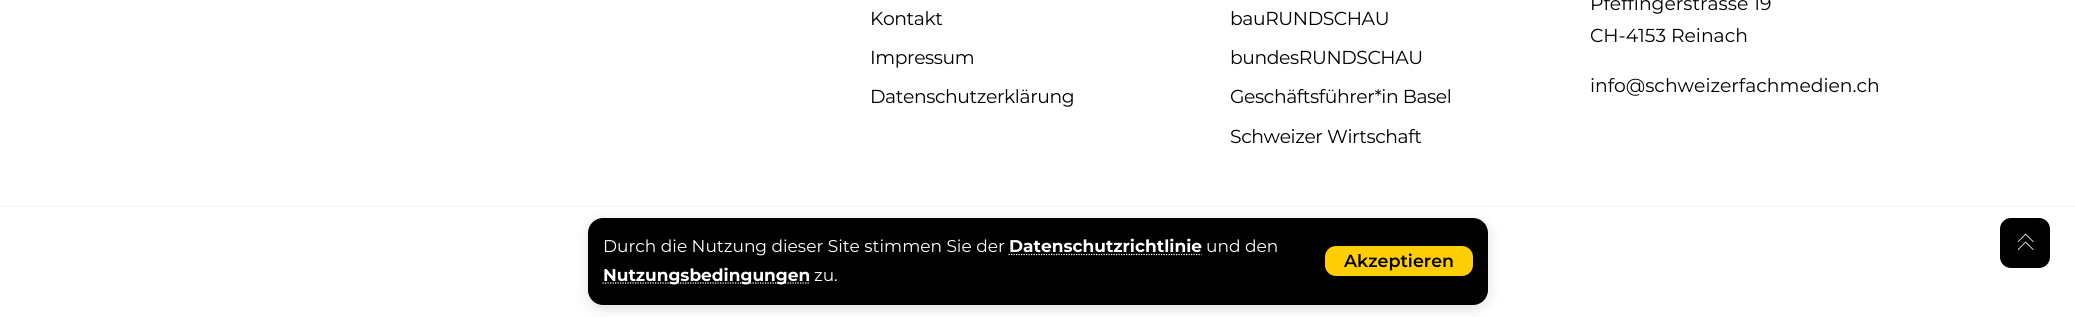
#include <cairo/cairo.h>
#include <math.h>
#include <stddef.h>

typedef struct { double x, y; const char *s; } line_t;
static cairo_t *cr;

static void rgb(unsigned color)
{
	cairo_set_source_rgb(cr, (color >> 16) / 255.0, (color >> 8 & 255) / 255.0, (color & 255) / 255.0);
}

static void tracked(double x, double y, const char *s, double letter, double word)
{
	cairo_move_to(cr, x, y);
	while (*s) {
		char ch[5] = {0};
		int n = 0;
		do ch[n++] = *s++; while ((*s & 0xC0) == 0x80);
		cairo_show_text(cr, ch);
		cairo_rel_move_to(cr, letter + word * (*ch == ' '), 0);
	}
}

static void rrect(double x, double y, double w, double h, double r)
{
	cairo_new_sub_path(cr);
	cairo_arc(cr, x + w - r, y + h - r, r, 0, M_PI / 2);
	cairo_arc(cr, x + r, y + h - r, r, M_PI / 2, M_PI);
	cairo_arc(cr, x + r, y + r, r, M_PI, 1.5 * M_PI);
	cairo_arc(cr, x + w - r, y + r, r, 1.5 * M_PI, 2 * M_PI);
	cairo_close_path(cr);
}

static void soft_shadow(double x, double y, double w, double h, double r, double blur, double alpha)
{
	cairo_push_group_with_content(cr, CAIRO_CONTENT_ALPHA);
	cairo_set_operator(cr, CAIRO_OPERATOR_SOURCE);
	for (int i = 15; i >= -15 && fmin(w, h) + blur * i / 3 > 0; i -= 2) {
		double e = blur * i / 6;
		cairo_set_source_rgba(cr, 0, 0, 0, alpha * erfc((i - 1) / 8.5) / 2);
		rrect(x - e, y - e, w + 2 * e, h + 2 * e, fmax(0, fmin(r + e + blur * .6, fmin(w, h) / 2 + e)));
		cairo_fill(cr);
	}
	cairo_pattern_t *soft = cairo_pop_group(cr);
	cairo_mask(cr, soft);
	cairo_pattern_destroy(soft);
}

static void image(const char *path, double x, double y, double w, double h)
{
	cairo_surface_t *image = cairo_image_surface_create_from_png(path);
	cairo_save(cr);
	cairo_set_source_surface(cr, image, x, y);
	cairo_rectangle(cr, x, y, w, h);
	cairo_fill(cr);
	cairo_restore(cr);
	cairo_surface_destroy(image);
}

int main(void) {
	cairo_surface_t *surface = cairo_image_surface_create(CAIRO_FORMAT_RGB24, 2075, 317);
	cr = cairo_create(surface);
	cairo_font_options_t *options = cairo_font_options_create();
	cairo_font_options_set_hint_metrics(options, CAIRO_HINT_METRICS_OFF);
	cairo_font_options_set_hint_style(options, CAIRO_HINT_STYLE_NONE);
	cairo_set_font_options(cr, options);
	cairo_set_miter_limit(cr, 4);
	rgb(0xffffff);
	cairo_paint(cr);
	rgb(0xf1f1f1);
	cairo_rectangle(cr, 0, 206, 2075, 1);
	cairo_fill(cr);
	rgb(0x000000);
	soft_shadow(588, 221, 900, 88, 15, 7.5, 0.12);
	rgb(0x000000);
	rrect(588, 218, 900, 87, 15);
	cairo_fill(cr);
	cairo_new_path(cr);
	cairo_move_to(cr, 1008.5, 254.5);
	cairo_line_to(cr, 1201.5, 254.5);
	rgb(0xffffff);
	cairo_set_line_width(cr, 1.2);
	cairo_set_dash(cr, (double[]){1.25, 1.25}, 2, 0);
	cairo_stroke(cr);
	cairo_new_path(cr);
	cairo_move_to(cr, 602.5, 283);
	cairo_line_to(cr, 809.5, 283);
	cairo_stroke(cr);
	rgb(0xffce05);
	rrect(1325, 246, 148, 30, 11);
	cairo_fill(cr);
	rgb(0x000000);
	rrect(2000, 218, 50, 50, 11);
	cairo_fill(cr);
	image("img/1.png", 2017, 233, 17, 17);
	cairo_select_font_face(cr, "Montserrat", CAIRO_FONT_SLANT_NORMAL, CAIRO_FONT_WEIGHT_NORMAL);
	cairo_set_font_size(cr, 18.75);
	{
		static const line_t items[] = {
			{870, 25, "Kontakt"},
			{870, 64, "Impressum"},
			{870, 103, "Datenschutzerklärung"},
			{1230, 25, "bauRUNDSCHAU"},
			{1230, 64, "bundesRUNDSCHAU"},
			{1230, 103, "Geschäftsführer*in Basel"},
			{1230, 143, "Schweizer Wirtschaft"},
		};
		for (size_t i = 0; i < sizeof items / sizeof *items; i++) {
			tracked(items[i].x, items[i].y, items[i].s, -0.4, 0);
		}
	}
	{
		static const line_t items[] = {
			{1590, 10, "Pfeffingerstrasse 19"},
			{1590, 42, "CH-4153 Reinach"},
			{1590, 92, "info@schweizerfachmedien.ch"},
		};
		for (size_t i = 0; i < sizeof items / sizeof *items; i++) {
			cairo_move_to(cr, items[i].x, items[i].y);
			cairo_show_text(cr, items[i].s);
		}
	}
	cairo_set_font_size(cr, 17);
	rgb(0xffffff);
	cairo_move_to(cr, 603, 252);
	cairo_show_text(cr, "Durch die Nutzung dieser Site stimmen Sie der");
	cairo_select_font_face(cr, "Montserrat", CAIRO_FONT_SLANT_NORMAL, CAIRO_FONT_WEIGHT_BOLD);
	cairo_move_to(cr, 1009, 252);
	cairo_show_text(cr, "Datenschutzrichtlinie");
	cairo_select_font_face(cr, "Montserrat", CAIRO_FONT_SLANT_NORMAL, CAIRO_FONT_WEIGHT_NORMAL);
	cairo_move_to(cr, 1206, 252);
	cairo_show_text(cr, "und den");
	cairo_select_font_face(cr, "Montserrat", CAIRO_FONT_SLANT_NORMAL, CAIRO_FONT_WEIGHT_BOLD);
	cairo_move_to(cr, 603, 281);
	cairo_show_text(cr, "Nutzungsbedingungen");
	cairo_select_font_face(cr, "Montserrat", CAIRO_FONT_SLANT_NORMAL, CAIRO_FONT_WEIGHT_NORMAL);
	cairo_move_to(cr, 814, 281);
	cairo_show_text(cr, "zu.");
	cairo_select_font_face(cr, "Montserrat SemiBold", CAIRO_FONT_SLANT_NORMAL, CAIRO_FONT_WEIGHT_NORMAL);
	cairo_set_font_size(cr, 17.5);
	rgb(0x000000);
	cairo_move_to(cr, 1344, 267);
	cairo_show_text(cr, "Akzeptieren");
	cairo_surface_write_to_png(surface, "page.png");
	cairo_font_options_destroy(options);
	cairo_destroy(cr);
	cairo_surface_destroy(surface);
	return 0;
}
